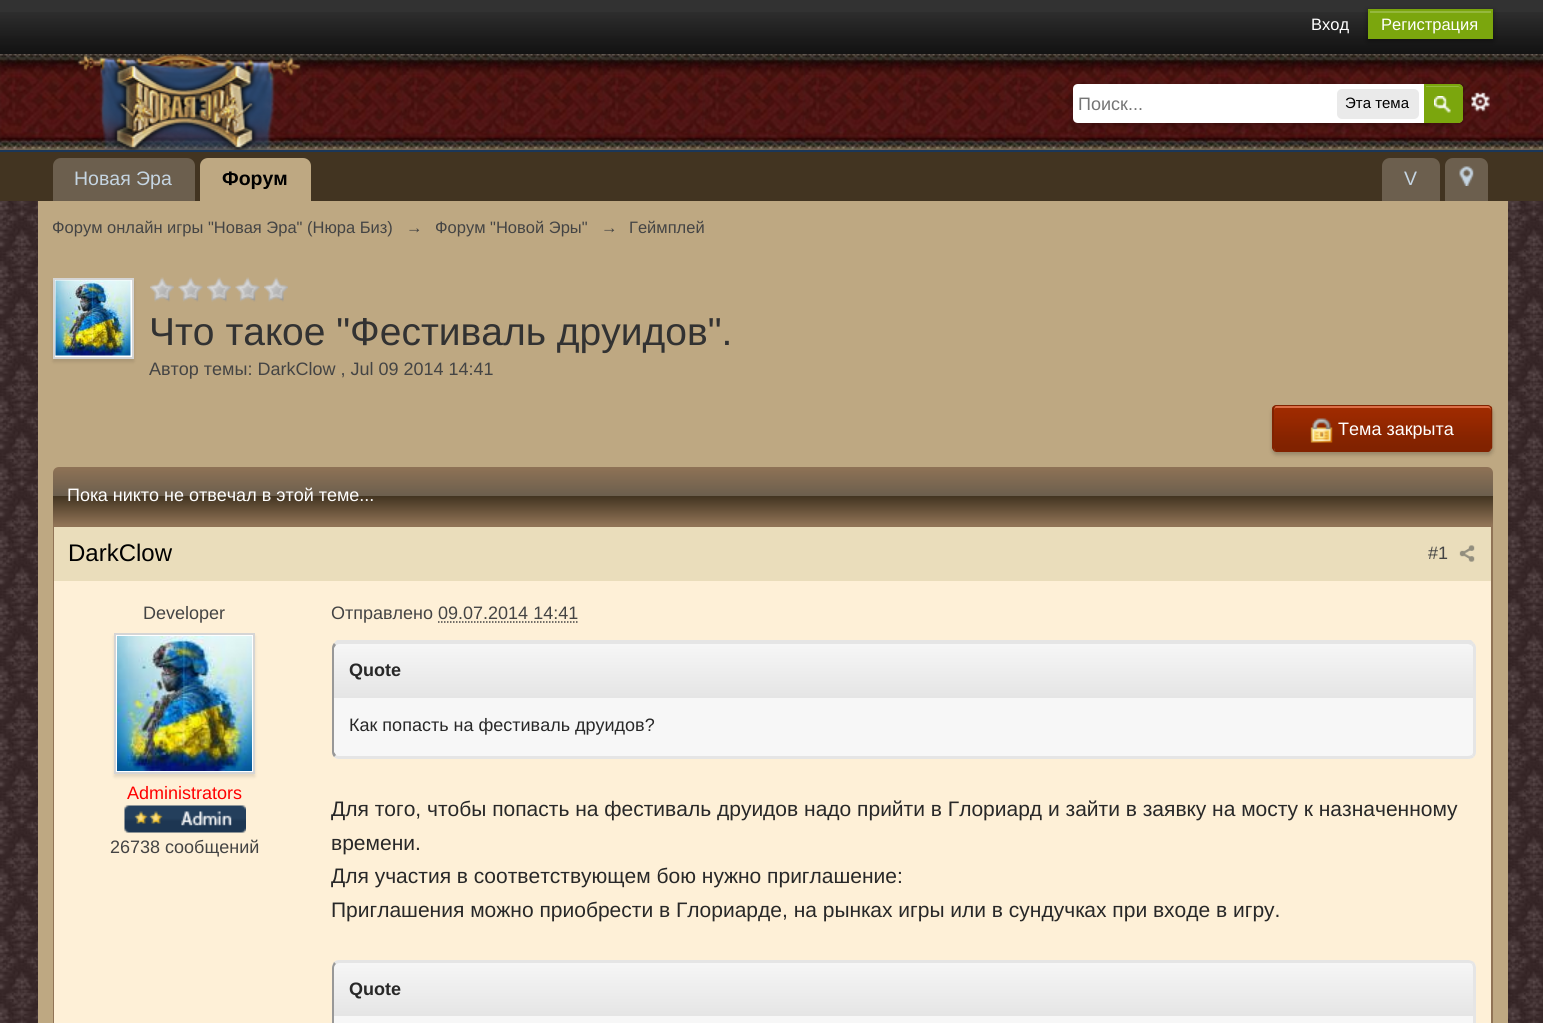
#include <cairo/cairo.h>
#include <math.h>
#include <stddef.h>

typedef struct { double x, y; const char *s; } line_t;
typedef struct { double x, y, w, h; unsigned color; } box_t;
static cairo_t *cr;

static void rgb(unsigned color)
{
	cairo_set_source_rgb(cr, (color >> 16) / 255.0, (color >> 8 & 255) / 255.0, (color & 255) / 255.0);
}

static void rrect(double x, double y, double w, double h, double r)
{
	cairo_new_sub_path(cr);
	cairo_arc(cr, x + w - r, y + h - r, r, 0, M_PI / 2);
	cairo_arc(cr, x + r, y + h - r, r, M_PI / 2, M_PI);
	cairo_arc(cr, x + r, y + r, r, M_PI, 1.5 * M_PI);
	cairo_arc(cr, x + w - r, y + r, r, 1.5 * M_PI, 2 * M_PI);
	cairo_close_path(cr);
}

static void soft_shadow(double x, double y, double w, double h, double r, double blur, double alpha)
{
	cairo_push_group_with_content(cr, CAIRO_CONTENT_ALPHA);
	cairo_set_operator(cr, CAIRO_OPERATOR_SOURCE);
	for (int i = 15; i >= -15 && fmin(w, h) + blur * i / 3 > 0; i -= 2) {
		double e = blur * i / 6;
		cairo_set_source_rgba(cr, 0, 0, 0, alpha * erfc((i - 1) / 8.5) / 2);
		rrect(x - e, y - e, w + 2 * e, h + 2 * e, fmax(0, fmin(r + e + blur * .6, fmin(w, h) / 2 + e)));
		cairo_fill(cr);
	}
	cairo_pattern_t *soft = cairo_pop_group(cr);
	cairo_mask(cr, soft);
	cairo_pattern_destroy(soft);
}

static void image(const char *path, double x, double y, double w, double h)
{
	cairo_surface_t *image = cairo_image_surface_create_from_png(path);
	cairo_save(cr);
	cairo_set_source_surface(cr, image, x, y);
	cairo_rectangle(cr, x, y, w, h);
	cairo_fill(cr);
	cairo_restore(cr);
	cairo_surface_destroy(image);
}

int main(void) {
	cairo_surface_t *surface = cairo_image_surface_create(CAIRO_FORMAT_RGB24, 1543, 1023);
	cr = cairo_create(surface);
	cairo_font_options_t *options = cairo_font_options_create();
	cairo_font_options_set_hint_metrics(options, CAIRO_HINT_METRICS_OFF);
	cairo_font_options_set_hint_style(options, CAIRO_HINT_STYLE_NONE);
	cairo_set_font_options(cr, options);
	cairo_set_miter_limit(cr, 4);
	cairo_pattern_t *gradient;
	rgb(0xffffff);
	cairo_paint(cr);
	image("img/1.png", 0, 54, 1543, 969);
	rgb(0x323232);
	cairo_rectangle(cr, 0, 0, 1543, 12);
	cairo_fill(cr);
	image("img/2.png", 0, 12, 1543, 42);
	rgb(0x000000);
	soft_shadow(1368, 11, 125, 30, 0, 3, 0.4);
	rgb(0x7ba60d);
	cairo_rectangle(cr, 1368, 9, 125, 30);
	cairo_fill(cr);
	rgb(0x95b83d);
	cairo_rectangle(cr, 1370, 11, 121, 2);
	cairo_fill(cr);
	image("img/3.png", 0, 54, 1543, 96);
	rgb(0x1b3759);
	cairo_rectangle(cr, 0, 150, 1543, 2);
	cairo_fill(cr);
	image("img/4.png", 77, 54, 224, 96);
	image("img/6.png", 1471, 92, 19, 20);
	rgb(0x000000);
	soft_shadow(1073, 87, 390, 39, 6, 3, 0.2);
	rgb(0xffffff);
	cairo_new_path(cr);
	cairo_move_to(cr, 1078, 84);
	cairo_line_to(cr, 1457, 84);
	cairo_curve_to(cr, 1460.5, 84, 1463, 86.5, 1463, 90);
	cairo_line_to(cr, 1463, 117);
	cairo_curve_to(cr, 1463, 120.5, 1460.5, 123, 1457, 123);
	cairo_line_to(cr, 1078, 123);
	cairo_curve_to(cr, 1075, 123, 1073, 121, 1073, 118);
	cairo_line_to(cr, 1073, 89);
	cairo_curve_to(cr, 1073, 86, 1075, 84, 1078, 84);
	cairo_close_path(cr);
	cairo_fill(cr);
	rgb(0xeaeaea);
	rrect(1337, 89, 82, 30, 5);
	cairo_fill(cr);
	rgb(0x7ba60d);
	cairo_new_path(cr);
	cairo_move_to(cr, 1424, 84);
	cairo_line_to(cr, 1458, 84);
	cairo_curve_to(cr, 1461, 84, 1463, 86, 1463, 89);
	cairo_line_to(cr, 1463, 118);
	cairo_curve_to(cr, 1463, 121, 1461, 123, 1458, 123);
	cairo_line_to(cr, 1424, 123);
	cairo_close_path(cr);
	cairo_fill(cr);
	image("img/5.png", 1434, 96, 17, 17);
	rgb(0x95b83d);
	cairo_new_path(cr);
	cairo_move_to(cr, 1425, 87);
	cairo_line_to(cr, 1458, 87);
	cairo_curve_to(cr, 1460, 87, 1461, 88, 1461, 90);
	cairo_line_to(cr, 1461, 89);
	cairo_curve_to(cr, 1461, 87.5, 1459.5, 86, 1458, 86);
	cairo_line_to(cr, 1425, 86);
	cairo_close_path(cr);
	cairo_fill(cr);
	cairo_new_path(cr);
	cairo_move_to(cr, 1425, 85);
	cairo_line_to(cr, 1458, 85);
	cairo_curve_to(cr, 1460, 85, 1462, 87, 1462, 89);
	cairo_line_to(cr, 1462, 118);
	cairo_curve_to(cr, 1462, 120, 1460, 122, 1458, 122);
	cairo_line_to(cr, 1425, 122);
	cairo_close_path(cr);
	rgb(0x7ba60d);
	cairo_stroke(cr);
	rgb(0x423421);
	cairo_rectangle(cr, 0, 152, 1543, 49);
	cairo_fill(cr);
	rgb(0x6c5f4e);
	cairo_new_path(cr);
	cairo_move_to(cr, 61, 158);
	cairo_line_to(cr, 187, 158);
	cairo_curve_to(cr, 191.5, 158, 195, 161.5, 195, 166);
	cairo_line_to(cr, 195, 201);
	cairo_line_to(cr, 53, 201);
	cairo_line_to(cr, 53, 166);
	cairo_curve_to(cr, 53, 161.5, 56.5, 158, 61, 158);
	cairo_close_path(cr);
	cairo_fill(cr);
	rgb(0xbea882);
	cairo_new_path(cr);
	cairo_move_to(cr, 208, 158);
	cairo_line_to(cr, 303, 158);
	cairo_curve_to(cr, 307.5, 158, 311, 161.5, 311, 166);
	cairo_line_to(cr, 311, 201);
	cairo_line_to(cr, 200, 201);
	cairo_line_to(cr, 200, 166);
	cairo_curve_to(cr, 200, 161.5, 203.5, 158, 208, 158);
	cairo_close_path(cr);
	cairo_fill(cr);
	rgb(0x6c5f4e);
	cairo_new_path(cr);
	cairo_move_to(cr, 1390, 158);
	cairo_line_to(cr, 1432, 158);
	cairo_curve_to(cr, 1436.5, 158, 1440, 161.5, 1440, 166);
	cairo_line_to(cr, 1440, 201);
	cairo_line_to(cr, 1382, 201);
	cairo_line_to(cr, 1382, 166);
	cairo_curve_to(cr, 1382, 161.5, 1385.5, 158, 1390, 158);
	cairo_close_path(cr);
	cairo_fill(cr);
	cairo_new_path(cr);
	cairo_move_to(cr, 1453, 158);
	cairo_line_to(cr, 1480, 158);
	cairo_curve_to(cr, 1484.5, 158, 1488, 161.5, 1488, 166);
	cairo_line_to(cr, 1488, 201);
	cairo_line_to(cr, 1445, 201);
	cairo_line_to(cr, 1445, 166);
	cairo_curve_to(cr, 1445, 161.5, 1448.5, 158, 1453, 158);
	cairo_close_path(cr);
	cairo_fill(cr);
	image("img/7.png", 1459, 166, 15, 20);
	rgb(0xbea882);
	cairo_rectangle(cr, 38, 201, 1470, 822);
	cairo_fill(cr);
	rgb(0x000000);
	soft_shadow(53, 281, 81, 81, 0, 1.5, 0.1);
	rgb(0xffffff);
	cairo_rectangle(cr, 54, 279, 79, 79);
	cairo_fill_preserve(cr);
	rgb(0xd5d5d5);
	cairo_stroke(cr);
	image("img/8.png", 55, 280, 76, 76);
	image("img/9.png", 150, 277, 24, 25);
	image("img/10.png", 178, 277, 25, 25);
	image("img/9.png", 207, 277, 24, 25);
	image("img/10.png", 235, 277, 25, 25);
	image("img/11.png", 264, 277, 24, 25);
	rgb(0x000000);
	soft_shadow(1272, 408, 221, 47, 5, 2, 0.2);
	rgb(0x812200);
	cairo_new_path(cr);
	cairo_move_to(cr, 1276, 406);
	cairo_line_to(cr, 1488, 406);
	cairo_curve_to(cr, 1490, 406, 1491, 408, 1491, 410);
	cairo_line_to(cr, 1491, 447);
	cairo_curve_to(cr, 1491, 449, 1490, 452, 1488, 452);
	cairo_line_to(cr, 1276, 452);
	cairo_curve_to(cr, 1275, 452, 1274, 449, 1274, 447);
	cairo_line_to(cr, 1274, 410);
	cairo_curve_to(cr, 1274, 408, 1275, 406, 1276, 406);
	cairo_close_path(cr);
	cairo_fill(cr);
	image("img/12.png", 1272, 406, 221, 43);
	rgb(0xdb6e46);
	cairo_new_path(cr);
	cairo_move_to(cr, 1276, 408);
	cairo_line_to(cr, 1488, 408);
	cairo_curve_to(cr, 1490, 408, 1491, 409, 1491, 411);
	cairo_line_to(cr, 1491, 410);
	cairo_curve_to(cr, 1491, 408, 1490, 406, 1488, 406);
	cairo_line_to(cr, 1276, 406);
	cairo_curve_to(cr, 1275, 406, 1274, 408, 1274, 410);
	cairo_line_to(cr, 1274, 447);
	cairo_line_to(cr, 1274, 450);
	cairo_line_to(cr, 1274, 417);
	cairo_curve_to(cr, 1274, 414, 1273, 408, 1276, 408);
	cairo_close_path(cr);
	cairo_fill(cr);
	rgb(0x812200);
	cairo_set_fill_rule(cr, CAIRO_FILL_RULE_EVEN_ODD);
	cairo_new_path(cr);
	cairo_move_to(cr, 1276, 405);
	cairo_line_to(cr, 1488, 405);
	cairo_curve_to(cr, 1490, 405, 1492, 407, 1492, 410);
	cairo_line_to(cr, 1492, 447);
	cairo_curve_to(cr, 1492, 449, 1490, 452, 1488, 452);
	cairo_line_to(cr, 1276, 452);
	cairo_curve_to(cr, 1274, 452, 1272, 449, 1272, 447);
	cairo_line_to(cr, 1272, 410);
	cairo_curve_to(cr, 1272, 407, 1274, 405, 1276, 405);
	cairo_close_path(cr);
	cairo_move_to(cr, 1276, 406);
	cairo_line_to(cr, 1488, 406);
	cairo_curve_to(cr, 1490, 406, 1491, 408, 1491, 410);
	cairo_line_to(cr, 1491, 447);
	cairo_curve_to(cr, 1491, 449, 1490, 452, 1488, 452);
	cairo_line_to(cr, 1276, 452);
	cairo_curve_to(cr, 1275, 452, 1274, 449, 1274, 447);
	cairo_line_to(cr, 1274, 410);
	cairo_curve_to(cr, 1274, 408, 1275, 406, 1276, 406);
	cairo_close_path(cr);
	cairo_fill(cr);
	image("img/13.png", 1310, 418, 23, 25);
	gradient = cairo_pattern_create_linear(773, 466, 773, 525);
	cairo_pattern_add_color_stop_rgba(gradient, 0, 0.565, 0.451, 0.337, 1);
	cairo_pattern_add_color_stop_rgba(gradient, 0.5, 0.424, 0.373, 0.306, 1);
	cairo_pattern_add_color_stop_rgba(gradient, 0.51, 0.259, 0.204, 0.129, 1);
	cairo_pattern_add_color_stop_rgba(gradient, 1, 0.565, 0.451, 0.337, 1);
	cairo_set_source(cr, gradient);
	cairo_pattern_destroy(gradient);
	cairo_new_path(cr);
	cairo_move_to(cr, 59, 467);
	cairo_line_to(cr, 1487, 467);
	cairo_curve_to(cr, 1490.5, 467, 1493, 469.5, 1493, 473);
	cairo_line_to(cr, 1493, 525);
	cairo_line_to(cr, 53, 525);
	cairo_line_to(cr, 53, 473);
	cairo_curve_to(cr, 53, 469.5, 55.5, 467, 59, 467);
	cairo_close_path(cr);
	cairo_fill(cr);
	{
		static const box_t items[] = {
			{53, 525, 1440, 498, 0x907356},
			{54, 581, 1437, 442, 0xfef0d7},
			{54, 527, 1437, 54, 0xeaddbb},
		};
		for (size_t i = 0; i < sizeof items / sizeof *items; i++) {
			rgb(items[i].color);
			cairo_rectangle(cr, items[i].x, items[i].y, items[i].w, items[i].h);
			cairo_fill(cr);
		}
	}
	image("img/14.png", 1459, 545, 16, 17);
	rgb(0x000000);
	soft_shadow(114, 636, 141, 141, 0, 1.5, 0.1);
	rgb(0xffffff);
	cairo_rectangle(cr, 115, 634, 139, 139);
	cairo_fill_preserve(cr);
	rgb(0xd5d5d5);
	cairo_stroke(cr);
	image("img/15.png", 117, 636, 135, 135);
	image("img/16.png", 124, 805, 122, 28);
	cairo_new_path(cr);
	cairo_move_to(cr, 438, 622);
	cairo_line_to(cr, 578, 622);
	rgb(0x444444);
	cairo_set_line_width(cr, 1.5);
	cairo_set_dash(cr, (double[]){1.5, 1.5}, 2, 0);
	cairo_stroke(cr);
	cairo_save(cr);
	cairo_set_fill_rule(cr, CAIRO_FILL_RULE_WINDING);
	cairo_new_path(cr);
	cairo_move_to(cr, 340, 641);
	cairo_line_to(cr, 1468, 641);
	cairo_curve_to(cr, 1472.5, 641, 1476, 644.5, 1476, 649);
	cairo_line_to(cr, 1476, 698);
	cairo_line_to(cr, 332, 698);
	cairo_line_to(cr, 332, 649);
	cairo_curve_to(cr, 332, 644.5, 335.5, 641, 340, 641);
	cairo_close_path(cr);
	cairo_clip(cr);
	gradient = cairo_pattern_create_linear(335, 644, 335, 698);
	cairo_pattern_add_color_stop_rgba(gradient, 0, 0.965, 0.965, 0.965, 1);
	cairo_pattern_add_color_stop_rgba(gradient, 1, 0.898, 0.898, 0.898, 1);
	cairo_set_source(cr, gradient);
	cairo_pattern_destroy(gradient);
	cairo_rectangle(cr, 332, 644, 1144, 54);
	cairo_fill(cr);
	cairo_restore(cr);
	rgb(0xe5e5e5);
	cairo_set_fill_rule(cr, CAIRO_FILL_RULE_WINDING);
	cairo_new_path(cr);
	cairo_move_to(cr, 339, 644);
	cairo_line_to(cr, 336, 645);
	cairo_line_to(cr, 334, 643);
	cairo_line_to(cr, 337, 640);
	cairo_line_to(cr, 1471, 640);
	cairo_line_to(cr, 1474, 643);
	cairo_line_to(cr, 1471, 645);
	cairo_line_to(cr, 1468, 644);
	cairo_close_path(cr);
	cairo_fill(cr);
	cairo_new_path(cr);
	cairo_move_to(cr, 1473, 698);
	cairo_line_to(cr, 1473, 647);
	cairo_line_to(cr, 1471, 645);
	cairo_line_to(cr, 1474, 643);
	cairo_curve_to(cr, 1475, 644, 1476, 646, 1476, 648);
	cairo_line_to(cr, 1476, 698);
	cairo_close_path(cr);
	cairo_fill(cr);
	rgb(0x989898);
	cairo_new_path(cr);
	cairo_move_to(cr, 332, 698);
	cairo_line_to(cr, 332, 648);
	cairo_curve_to(cr, 332, 646, 333, 644, 334, 643);
	cairo_line_to(cr, 336, 645);
	cairo_line_to(cr, 334, 648);
	cairo_line_to(cr, 334, 698);
	cairo_close_path(cr);
	cairo_fill(cr);
	rgb(0xf7f7f7);
	cairo_new_path(cr);
	cairo_move_to(cr, 332, 698);
	cairo_line_to(cr, 1476, 698);
	cairo_line_to(cr, 1476, 751);
	cairo_curve_to(cr, 1476, 755.5, 1472.5, 759, 1468, 759);
	cairo_line_to(cr, 340, 759);
	cairo_curve_to(cr, 335.5, 759, 332, 755.5, 332, 751);
	cairo_close_path(cr);
	cairo_fill(cr);
	rgb(0xe5e5e5);
	cairo_new_path(cr);
	cairo_move_to(cr, 1474, 757);
	cairo_line_to(cr, 1472, 755);
	cairo_line_to(cr, 1473, 753);
	cairo_line_to(cr, 1473, 698);
	cairo_line_to(cr, 1476, 698);
	cairo_line_to(cr, 1476, 752);
	cairo_curve_to(cr, 1476, 754, 1475, 756, 1474, 757);
	cairo_close_path(cr);
	cairo_fill(cr);
	cairo_new_path(cr);
	cairo_move_to(cr, 339, 759);
	cairo_line_to(cr, 1468, 759);
	cairo_curve_to(cr, 1471, 759, 1473, 758, 1474, 757);
	cairo_line_to(cr, 1472, 755);
	cairo_curve_to(cr, 1471, 755, 1470, 756, 1468, 756);
	cairo_line_to(cr, 339, 756);
	cairo_curve_to(cr, 338, 756, 337, 756, 336, 755);
	cairo_line_to(cr, 334, 757);
	cairo_curve_to(cr, 335, 758, 337, 759, 339, 759);
	cairo_close_path(cr);
	cairo_fill(cr);
	rgb(0x989898);
	cairo_new_path(cr);
	cairo_move_to(cr, 332, 698);
	cairo_line_to(cr, 334, 698);
	cairo_line_to(cr, 334, 752);
	cairo_line_to(cr, 336, 755);
	cairo_line_to(cr, 334, 757);
	cairo_curve_to(cr, 333, 756, 332, 754, 332, 752);
	cairo_close_path(cr);
	cairo_fill(cr);
	cairo_save(cr);
	cairo_new_path(cr);
	cairo_move_to(cr, 340, 960);
	cairo_line_to(cr, 1468, 960);
	cairo_curve_to(cr, 1472.5, 960, 1476, 963.5, 1476, 968);
	cairo_line_to(cr, 1476, 1016);
	cairo_line_to(cr, 332, 1016);
	cairo_line_to(cr, 332, 968);
	cairo_curve_to(cr, 332, 963.5, 335.5, 960, 340, 960);
	cairo_close_path(cr);
	cairo_clip(cr);
	gradient = cairo_pattern_create_linear(335, 963, 335, 1016);
	cairo_pattern_add_color_stop_rgba(gradient, 0, 0.965, 0.965, 0.965, 1);
	cairo_pattern_add_color_stop_rgba(gradient, 1, 0.898, 0.898, 0.898, 1);
	cairo_set_source(cr, gradient);
	cairo_pattern_destroy(gradient);
	cairo_rectangle(cr, 332, 963, 1144, 53);
	cairo_fill(cr);
	cairo_restore(cr);
	rgb(0xe5e5e5);
	cairo_new_path(cr);
	cairo_move_to(cr, 339, 960);
	cairo_line_to(cr, 1468, 960);
	cairo_curve_to(cr, 1470, 960, 1472, 961, 1474, 962);
	cairo_line_to(cr, 1472, 964);
	cairo_curve_to(cr, 1471, 963, 1469, 963, 1468, 963);
	cairo_line_to(cr, 339, 963);
	cairo_line_to(cr, 336, 964);
	cairo_line_to(cr, 334, 962);
	cairo_curve_to(cr, 335, 961, 337, 960, 339, 960);
	cairo_close_path(cr);
	cairo_fill(cr);
	cairo_new_path(cr);
	cairo_move_to(cr, 1473, 1016);
	cairo_line_to(cr, 1473, 968);
	cairo_curve_to(cr, 1473, 966, 1472, 965, 1472, 964);
	cairo_line_to(cr, 1474, 962);
	cairo_curve_to(cr, 1475, 964, 1476, 966, 1476, 968);
	cairo_line_to(cr, 1476, 1016);
	cairo_close_path(cr);
	cairo_fill(cr);
	rgb(0x989898);
	cairo_new_path(cr);
	cairo_move_to(cr, 334, 1016);
	cairo_line_to(cr, 332, 1016);
	cairo_line_to(cr, 332, 968);
	cairo_curve_to(cr, 332, 966, 333, 964, 334, 962);
	cairo_line_to(cr, 336, 964);
	cairo_curve_to(cr, 335, 965, 334, 966, 334, 968);
	cairo_close_path(cr);
	cairo_fill(cr);
	rgb(0xf7f7f7);
	cairo_rectangle(cr, 332, 1016, 1144, 7);
	cairo_fill(cr);
	rgb(0xe5e5e5);
	cairo_new_path(cr);
	cairo_move_to(cr, 1474, 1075);
	cairo_line_to(cr, 1472, 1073);
	cairo_line_to(cr, 1473, 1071);
	cairo_line_to(cr, 1473, 1016);
	cairo_line_to(cr, 1476, 1016);
	cairo_line_to(cr, 1476, 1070);
	cairo_curve_to(cr, 1476, 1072, 1475, 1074, 1474, 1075);
	cairo_close_path(cr);
	cairo_fill(cr);
	rgb(0x989898);
	cairo_new_path(cr);
	cairo_move_to(cr, 332, 1016);
	cairo_line_to(cr, 334, 1016);
	cairo_line_to(cr, 334, 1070);
	cairo_line_to(cr, 336, 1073);
	cairo_line_to(cr, 334, 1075);
	cairo_curve_to(cr, 333, 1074, 332, 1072, 332, 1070);
	cairo_close_path(cr);
	cairo_fill(cr);
	cairo_select_font_face(cr, "Liberation Sans", CAIRO_FONT_SLANT_NORMAL, CAIRO_FONT_WEIGHT_NORMAL);
	cairo_set_font_size(cr, 16.5);
	rgb(0xffffff);
	cairo_move_to(cr, 1311, 30);
	cairo_show_text(cr, "Вход");
	cairo_move_to(cr, 1381, 30);
	cairo_show_text(cr, "Регистрация");
	cairo_set_font_size(cr, 18);
	rgb(0x757575);
	cairo_move_to(cr, 1078, 110);
	cairo_show_text(cr, "Поиск...");
	cairo_set_font_size(cr, 15);
	rgb(0x000000);
	cairo_move_to(cr, 1345, 108);
	cairo_show_text(cr, "Эта тема");
	cairo_set_font_size(cr, 19.5);
	rgb(0xc5d5e2);
	cairo_move_to(cr, 74, 185);
	cairo_show_text(cr, "Новая Эра");
	cairo_select_font_face(cr, "Liberation Sans", CAIRO_FONT_SLANT_NORMAL, CAIRO_FONT_WEIGHT_BOLD);
	rgb(0x000000);
	cairo_move_to(cr, 222, 185);
	cairo_show_text(cr, "Форум");
	cairo_select_font_face(cr, "Liberation Sans", CAIRO_FONT_SLANT_NORMAL, CAIRO_FONT_WEIGHT_NORMAL);
	rgb(0xc5d5e2);
	cairo_move_to(cr, 1404, 185);
	cairo_show_text(cr, "V");
	cairo_set_font_size(cr, 16.5);
	rgb(0x444444);
	{
		static const line_t items[] = {
			{52, 233, "Форум онлайн игры \"Новая Эра\" (Нюра Биз)"},
			{406, 233, "→"},
			{435, 233, "Форум \"Новой Эры\""},
			{601, 233, "→"},
			{629, 233, "Геймплей"},
		};
		for (size_t i = 0; i < sizeof items / sizeof *items; i++) {
			cairo_move_to(cr, items[i].x, items[i].y);
			cairo_show_text(cr, items[i].s);
		}
	}
	cairo_set_font_size(cr, 39);
	rgb(0x323232);
	cairo_move_to(cr, 149, 345);
	cairo_show_text(cr, "Что такое \"Фестиваль друидов\".");
	cairo_set_font_size(cr, 18);
	rgb(0x444444);
	cairo_move_to(cr, 149, 375);
	cairo_show_text(cr, "Автор темы: DarkClow , Jul 09 2014 14:41");
	rgb(0xffffff);
	cairo_move_to(cr, 1338, 435);
	cairo_show_text(cr, "Тема закрыта");
	cairo_move_to(cr, 67, 501);
	cairo_show_text(cr, "Пока никто не отвечал в этой теме...");
	cairo_set_font_size(cr, 24);
	rgb(0x000000);
	cairo_move_to(cr, 68, 561);
	cairo_show_text(cr, "DarkClow");
	cairo_set_font_size(cr, 18);
	rgb(0x444444);
	cairo_move_to(cr, 1428, 559);
	cairo_show_text(cr, "#1");
	cairo_move_to(cr, 143, 619);
	cairo_show_text(cr, "Developer");
	rgb(0xff0000);
	cairo_move_to(cr, 127, 799);
	cairo_show_text(cr, "Administrators");
	rgb(0x444444);
	cairo_move_to(cr, 110, 853);
	cairo_show_text(cr, "26738 сообщений");
	cairo_move_to(cr, 331, 619);
	cairo_show_text(cr, "Отправлено 09.07.2014 14:41");
	cairo_select_font_face(cr, "Liberation Sans", CAIRO_FONT_SLANT_NORMAL, CAIRO_FONT_WEIGHT_BOLD);
	rgb(0x282828);
	cairo_move_to(cr, 349, 676);
	cairo_show_text(cr, "Quote");
	cairo_select_font_face(cr, "Liberation Sans", CAIRO_FONT_SLANT_NORMAL, CAIRO_FONT_WEIGHT_NORMAL);
	cairo_move_to(cr, 349, 731);
	cairo_show_text(cr, "Как попасть на фестиваль друидов?");
	cairo_set_font_size(cr, 21);
	{
		static const line_t items[] = {
			{331, 816, "Для того, чтобы попасть на фестиваль друидов надо прийти в Глориард и зайти в заявку на мосту к назначенному"},
			{331, 850, "времени."},
			{331, 883, "Для участия в соответствующем бою нужно приглашение:"},
			{331, 917, "Приглашения можно приобрести в Глориарде, на рынках игры или в сундучках при входе в игру."},
		};
		for (size_t i = 0; i < sizeof items / sizeof *items; i++) {
			cairo_move_to(cr, items[i].x, items[i].y);
			cairo_show_text(cr, items[i].s);
		}
	}
	cairo_select_font_face(cr, "Liberation Sans", CAIRO_FONT_SLANT_NORMAL, CAIRO_FONT_WEIGHT_BOLD);
	cairo_set_font_size(cr, 18);
	cairo_move_to(cr, 349, 995);
	cairo_show_text(cr, "Quote");
	cairo_surface_write_to_png(surface, "page.png");
	cairo_font_options_destroy(options);
	cairo_destroy(cr);
	cairo_surface_destroy(surface);
	return 0;
}
